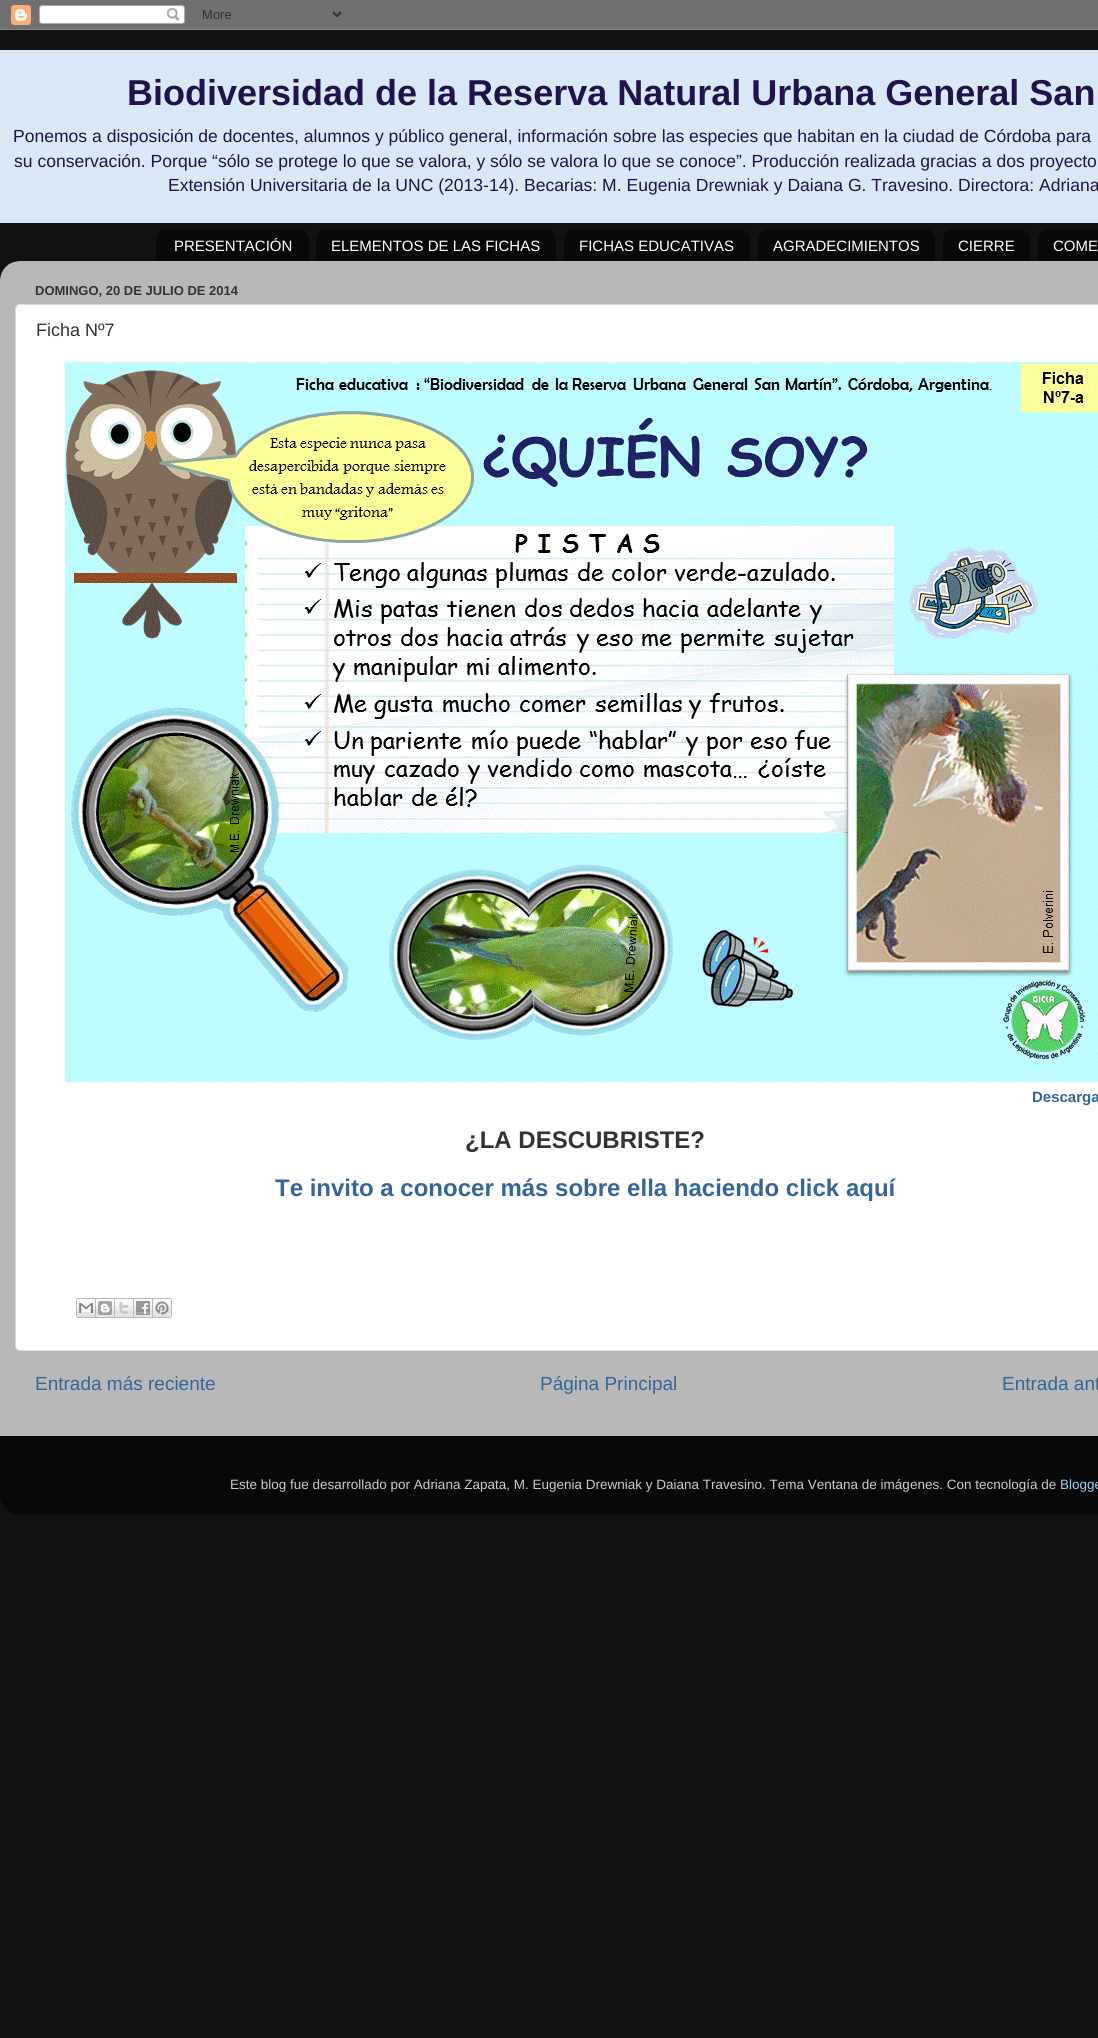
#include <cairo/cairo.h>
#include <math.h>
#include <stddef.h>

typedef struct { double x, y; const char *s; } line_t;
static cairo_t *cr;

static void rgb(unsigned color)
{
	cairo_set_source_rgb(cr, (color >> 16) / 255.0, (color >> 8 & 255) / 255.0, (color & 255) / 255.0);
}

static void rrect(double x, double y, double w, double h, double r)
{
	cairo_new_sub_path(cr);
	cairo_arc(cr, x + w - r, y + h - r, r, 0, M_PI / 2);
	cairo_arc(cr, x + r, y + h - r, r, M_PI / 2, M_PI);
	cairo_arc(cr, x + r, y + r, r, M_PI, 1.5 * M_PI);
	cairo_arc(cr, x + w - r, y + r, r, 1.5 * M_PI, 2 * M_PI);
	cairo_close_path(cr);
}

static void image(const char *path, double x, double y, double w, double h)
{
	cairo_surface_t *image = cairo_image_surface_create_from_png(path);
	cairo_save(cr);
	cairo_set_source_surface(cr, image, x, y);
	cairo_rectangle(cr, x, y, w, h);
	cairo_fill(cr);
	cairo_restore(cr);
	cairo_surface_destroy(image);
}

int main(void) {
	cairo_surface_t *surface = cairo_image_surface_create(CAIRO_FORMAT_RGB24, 1098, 2038);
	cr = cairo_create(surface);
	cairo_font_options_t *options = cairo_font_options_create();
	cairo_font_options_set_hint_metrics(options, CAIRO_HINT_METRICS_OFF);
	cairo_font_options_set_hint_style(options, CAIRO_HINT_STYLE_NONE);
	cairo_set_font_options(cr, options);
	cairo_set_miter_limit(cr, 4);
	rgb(0x111111);
	cairo_paint(cr);
	image("img/1.png", 0, 0, 1098, 30);
	rgb(0xd9e8f6);
	cairo_rectangle(cr, 0, 50, 1098, 173);
	cairo_fill(cr);
	image("img/2.png", 156, 229, 153, 32);
	image("img/3.png", 316, 229, 240, 32);
	image("img/4.png", 564, 229, 186, 32);
	image("img/5.png", 758, 229, 177, 32);
	image("img/6.png", 943, 229, 87, 32);
	image("img/7.png", 1038, 229, 60, 32);
	image("img/8.png", 0, 261, 1098, 1175);
	rgb(0xffffff);
	rrect(15.5, 304.5, 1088, 1046, 4.5);
	cairo_fill_preserve(cr);
	rgb(0xdddddd);
	cairo_set_line_width(cr, 1);
	cairo_stroke(cr);
	image("img/9.png", 65, 362, 1033, 720);
	image("img/10.png", 76, 1298, 20, 20);
	image("img/11.png", 96, 1298, 19, 20);
	image("img/12.png", 115, 1298, 19, 20);
	image("img/13.png", 134, 1298, 19, 20);
	image("img/14.png", 153, 1298, 19, 20);
	image("img/15.png", 0, 1436, 1098, 79);
	cairo_select_font_face(cr, "Liberation Sans", CAIRO_FONT_SLANT_NORMAL, CAIRO_FONT_WEIGHT_BOLD);
	cairo_set_font_size(cr, 36);
	rgb(0x20124d);
	cairo_move_to(cr, 127, 105);
	cairo_show_text(cr, "Biodiversidad de la Reserva Natural Urbana General San");
	cairo_select_font_face(cr, "Liberation Sans", CAIRO_FONT_SLANT_NORMAL, CAIRO_FONT_WEIGHT_NORMAL);
	cairo_set_font_size(cr, 17.55);
	{
		static const line_t items[] = {
			{13, 142, "Ponemos a disposición de docentes, alumnos y público general, información sobre las especies que habitan en la ciudad de Córdoba para"},
			{14, 167, "su conservación. Porque “sólo se protege lo que se valora, y sólo se valora lo que se conoce”. Producción realizada gracias a dos proyecto"},
			{168, 191, "Extensión Universitaria de la UNC (2013-14). Becarias: M. Eugenia Drewniak y Daiana G. Travesino. Directora: Adriana"},
		};
		for (size_t i = 0; i < sizeof items / sizeof *items; i++) {
			cairo_move_to(cr, items[i].x, items[i].y);
			cairo_show_text(cr, items[i].s);
		}
	}
	cairo_set_font_size(cr, 15);
	rgb(0xffffff);
	{
		static const line_t items[] = {
			{174, 251, "PRESENTACIÓN"},
			{331, 251, "ELEMENTOS DE LAS FICHAS"},
			{579, 251, "FICHAS EDUCATIVAS"},
			{773, 251, "AGRADECIMIENTOS"},
			{958, 251, "CIERRE"},
			{1053, 251, "COME"},
		};
		for (size_t i = 0; i < sizeof items / sizeof *items; i++) {
			cairo_move_to(cr, items[i].x, items[i].y);
			cairo_show_text(cr, items[i].s);
		}
	}
	cairo_select_font_face(cr, "Liberation Sans", CAIRO_FONT_SLANT_NORMAL, CAIRO_FONT_WEIGHT_BOLD);
	cairo_set_font_size(cr, 13);
	rgb(0x333333);
	cairo_move_to(cr, 35, 295);
	cairo_show_text(cr, "DOMINGO, 20 DE JULIO DE 2014");
	cairo_select_font_face(cr, "Liberation Sans", CAIRO_FONT_SLANT_NORMAL, CAIRO_FONT_WEIGHT_NORMAL);
	cairo_set_font_size(cr, 18);
	cairo_move_to(cr, 36, 336);
	cairo_show_text(cr, "Ficha Nº7");
	cairo_select_font_face(cr, "Liberation Sans", CAIRO_FONT_SLANT_NORMAL, CAIRO_FONT_WEIGHT_BOLD);
	cairo_set_font_size(cr, 15);
	rgb(0x336699);
	cairo_move_to(cr, 1032, 1102);
	cairo_show_text(cr, "Descarga");
	cairo_set_font_size(cr, 24);
	rgb(0x333333);
	cairo_move_to(cr, 465, 1148);
	cairo_show_text(cr, "¿LA DESCUBRISTE?");
	rgb(0x336699);
	cairo_move_to(cr, 275, 1196);
	cairo_show_text(cr, "Te invito a conocer más sobre ella haciendo click aquí");
	cairo_select_font_face(cr, "Liberation Sans", CAIRO_FONT_SLANT_NORMAL, CAIRO_FONT_WEIGHT_NORMAL);
	cairo_set_font_size(cr, 19);
	{
		static const line_t items[] = {
			{35, 1390, "Entrada más reciente"},
			{540, 1390, "Página Principal"},
			{1002, 1390, "Entrada ant"},
		};
		for (size_t i = 0; i < sizeof items / sizeof *items; i++) {
			cairo_move_to(cr, items[i].x, items[i].y);
			cairo_show_text(cr, items[i].s);
		}
	}
	cairo_set_font_size(cr, 13.5);
	rgb(0xcccccc);
	cairo_move_to(cr, 230, 1489);
	cairo_show_text(cr, "Este blog fue desarrollado por Adriana Zapata, M. Eugenia Drewniak y Daiana Travesino. Tema Ventana de imágenes. Con tecnología de");
	rgb(0x99ccee);
	cairo_move_to(cr, 1060, 1489);
	cairo_show_text(cr, "Blogge");
	cairo_surface_write_to_png(surface, "page.png");
	cairo_font_options_destroy(options);
	cairo_destroy(cr);
	cairo_surface_destroy(surface);
	return 0;
}
